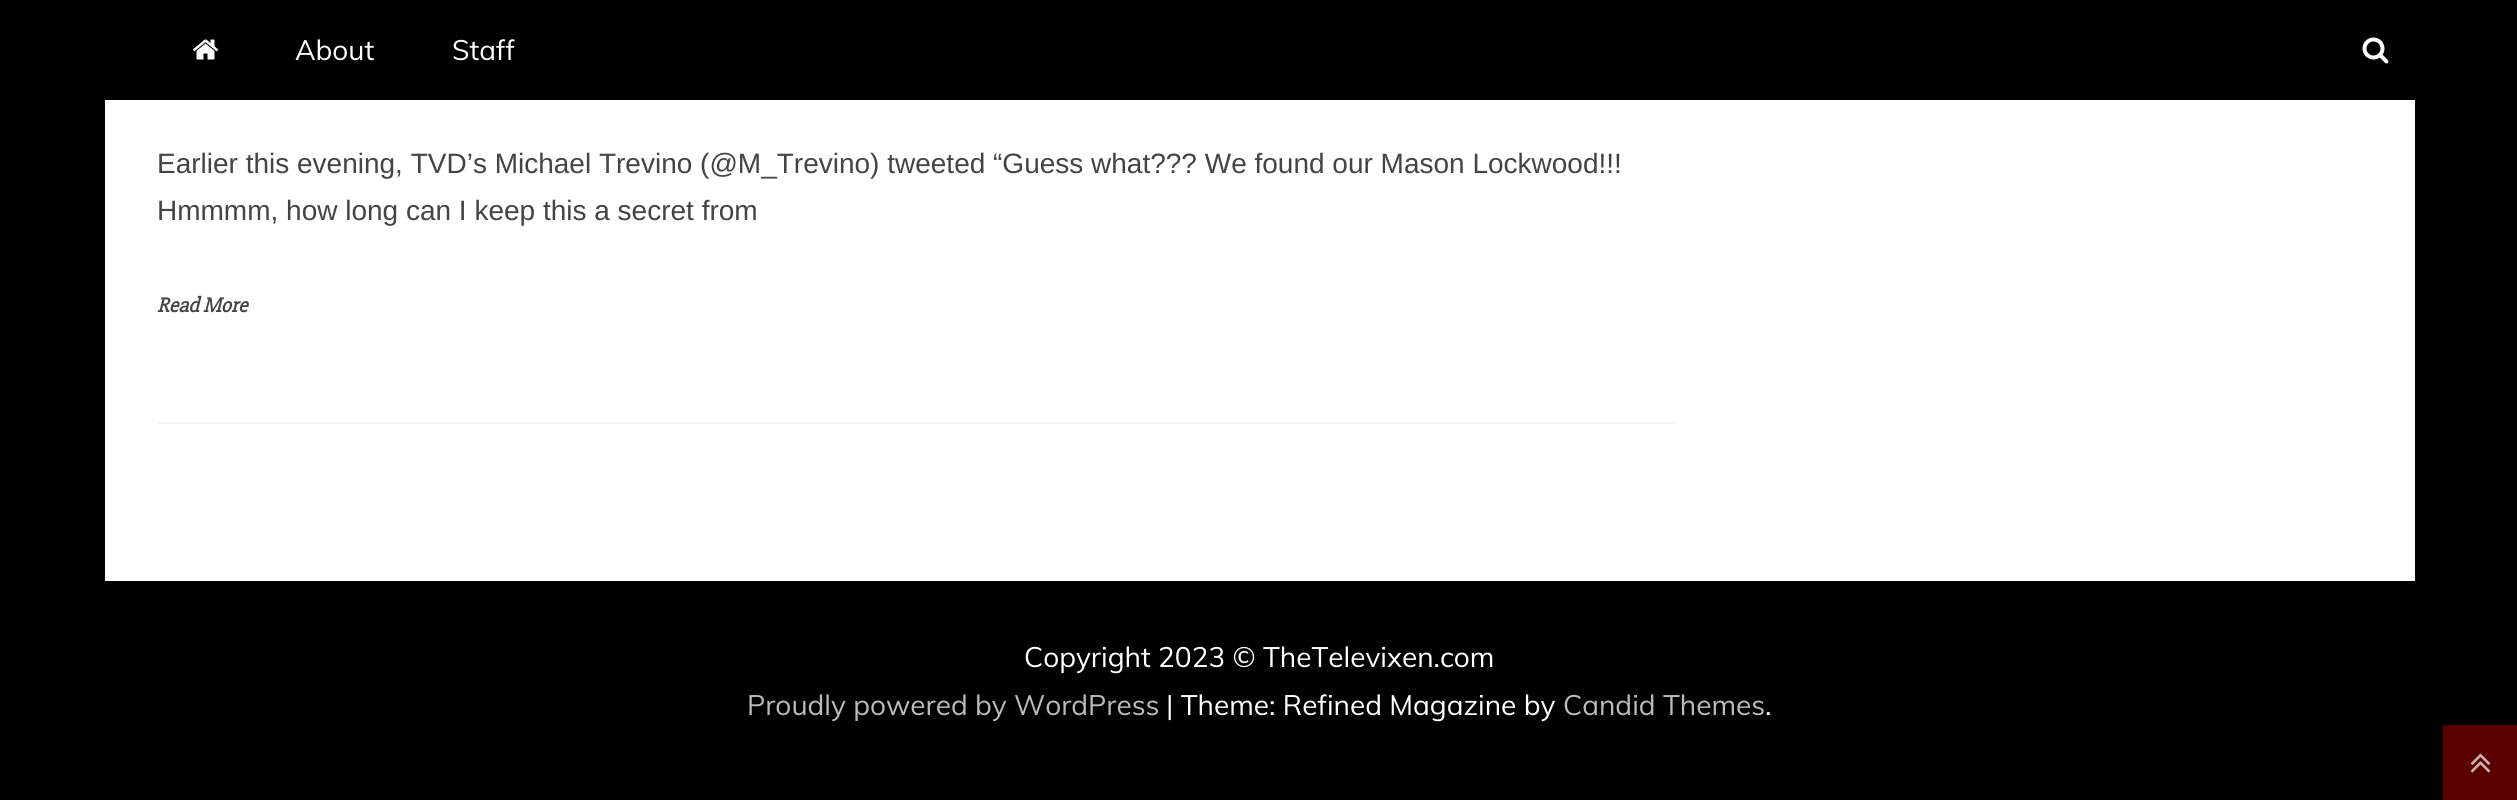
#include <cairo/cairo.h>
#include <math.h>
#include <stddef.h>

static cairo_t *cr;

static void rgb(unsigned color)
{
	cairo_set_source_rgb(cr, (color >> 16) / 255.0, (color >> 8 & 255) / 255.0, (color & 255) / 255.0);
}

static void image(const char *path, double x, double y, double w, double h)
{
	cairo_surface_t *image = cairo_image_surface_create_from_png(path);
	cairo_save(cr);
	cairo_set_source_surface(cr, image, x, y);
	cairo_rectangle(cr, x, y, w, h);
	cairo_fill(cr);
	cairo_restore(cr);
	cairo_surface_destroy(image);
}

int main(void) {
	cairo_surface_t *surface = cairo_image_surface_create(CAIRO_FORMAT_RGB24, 2517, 800);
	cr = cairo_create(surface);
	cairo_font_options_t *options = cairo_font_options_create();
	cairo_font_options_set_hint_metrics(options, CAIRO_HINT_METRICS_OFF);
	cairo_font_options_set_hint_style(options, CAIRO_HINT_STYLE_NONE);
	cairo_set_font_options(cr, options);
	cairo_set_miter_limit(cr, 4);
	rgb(0x000000);
	cairo_paint(cr);
	rgb(0xffffff);
	cairo_rectangle(cr, 105, 100, 2310, 481);
	cairo_fill(cr);
	image("img/1.png", 192, 39, 27, 21);
	image("img/2.png", 2362, 37, 27, 27);
	rgb(0xf5f5f5);
	cairo_new_path(cr);
	cairo_move_to(cr, 158, 422);
	cairo_line_to(cr, 158, 424);
	cairo_line_to(cr, 1675, 424);
	cairo_line_to(cr, 1675, -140);
	cairo_line_to(cr, 1675, 422);
	cairo_close_path(cr);
	cairo_fill(cr);
	rgb(0x5b0000);
	cairo_rectangle(cr, 2443, 725, 74, 75);
	cairo_fill(cr);
	image("img/3.png", 2470, 753, 21, 20);
	cairo_select_font_face(cr, "Muli", CAIRO_FONT_SLANT_NORMAL, CAIRO_FONT_WEIGHT_NORMAL);
	cairo_set_font_size(cr, 28);
	rgb(0xffffff);
	cairo_move_to(cr, 295, 60);
	cairo_show_text(cr, "About");
	cairo_move_to(cr, 452, 60);
	cairo_show_text(cr, "Staff");
	cairo_select_font_face(cr, "Liberation Sans", CAIRO_FONT_SLANT_NORMAL, CAIRO_FONT_WEIGHT_NORMAL);
	rgb(0x444444);
	cairo_move_to(cr, 157, 173);
	cairo_show_text(cr, "Earlier this evening, TVD’s Michael Trevino (@M_Trevino) tweeted “Guess what?\077? We found our Mason Lockwood!!!");
	cairo_move_to(cr, 157, 220);
	cairo_show_text(cr, "Hmmmm, how long can I keep this a secret from");
	cairo_select_font_face(cr, "Slabo 27px", CAIRO_FONT_SLANT_ITALIC, CAIRO_FONT_WEIGHT_BOLD);
	cairo_set_font_size(cr, 21);
	cairo_move_to(cr, 157, 312);
	cairo_show_text(cr, "Read More");
	cairo_select_font_face(cr, "Muli", CAIRO_FONT_SLANT_NORMAL, CAIRO_FONT_WEIGHT_NORMAL);
	cairo_set_font_size(cr, 28);
	rgb(0xffffff);
	cairo_move_to(cr, 1024, 667);
	cairo_show_text(cr, "Copyright 2023 © TheTelevixen.com");
	rgb(0xbbbbbb);
	cairo_move_to(cr, 747, 715);
	cairo_show_text(cr, "Proudly powered by WordPress");
	rgb(0xffffff);
	cairo_move_to(cr, 1166, 715);
	cairo_show_text(cr, "| Theme: Refined Magazine by");
	rgb(0xbbbbbb);
	cairo_move_to(cr, 1563, 715);
	cairo_show_text(cr, "Candid Themes");
	rgb(0xffffff);
	cairo_move_to(cr, 1765, 715);
	cairo_show_text(cr, ".");
	cairo_surface_write_to_png(surface, "page.png");
	cairo_font_options_destroy(options);
	cairo_destroy(cr);
	cairo_surface_destroy(surface);
	return 0;
}
